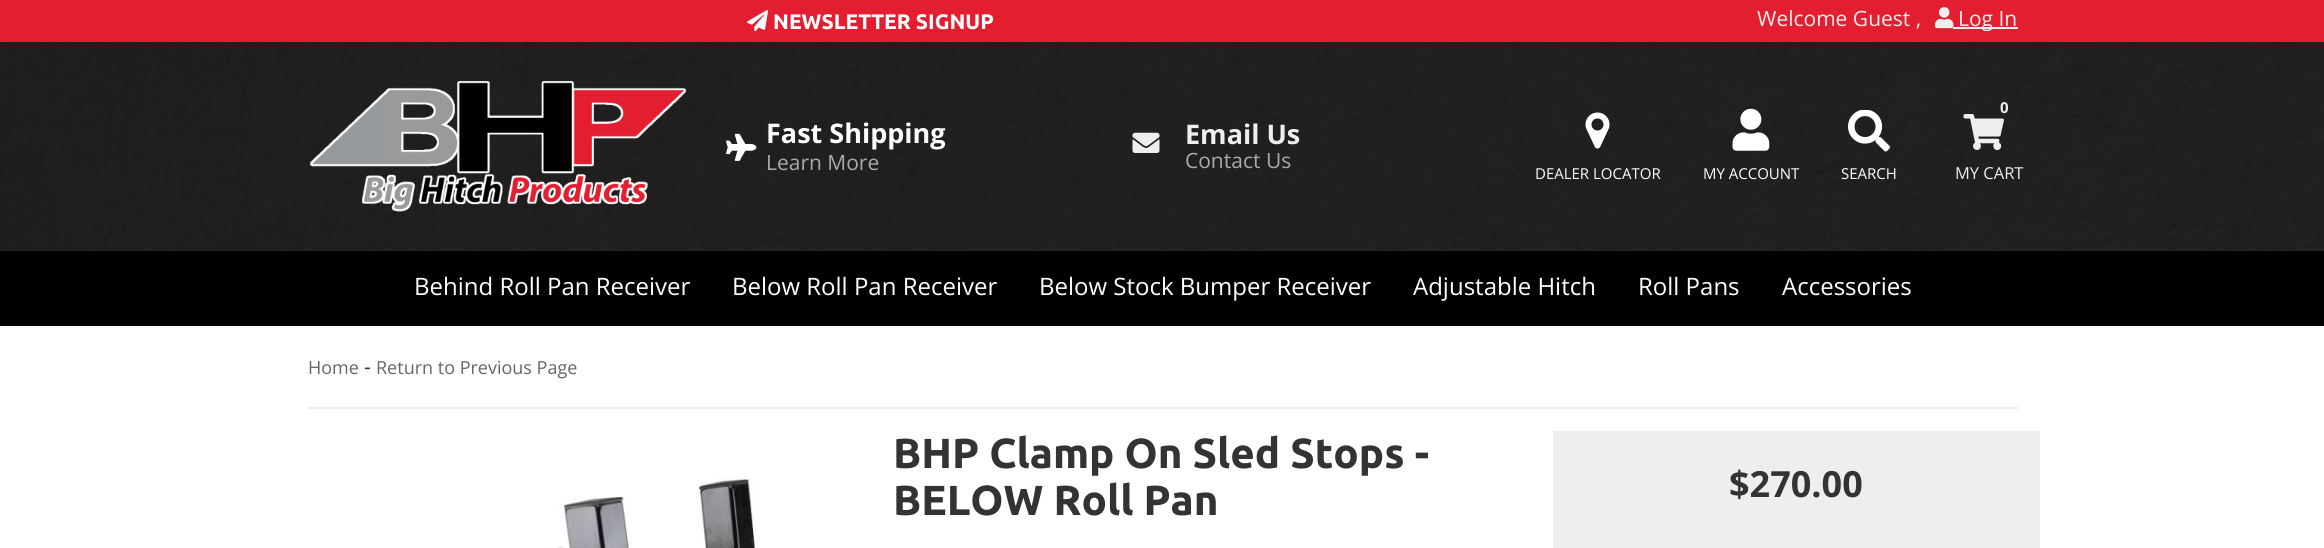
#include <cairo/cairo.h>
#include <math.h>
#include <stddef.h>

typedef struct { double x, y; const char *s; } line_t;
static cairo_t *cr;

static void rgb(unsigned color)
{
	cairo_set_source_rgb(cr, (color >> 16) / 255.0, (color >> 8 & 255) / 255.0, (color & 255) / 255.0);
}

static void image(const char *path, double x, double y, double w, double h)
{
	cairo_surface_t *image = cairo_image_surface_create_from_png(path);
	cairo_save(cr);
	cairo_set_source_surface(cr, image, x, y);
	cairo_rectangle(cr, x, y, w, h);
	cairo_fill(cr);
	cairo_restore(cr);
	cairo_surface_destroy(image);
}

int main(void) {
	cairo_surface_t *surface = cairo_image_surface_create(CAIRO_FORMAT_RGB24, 2324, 548);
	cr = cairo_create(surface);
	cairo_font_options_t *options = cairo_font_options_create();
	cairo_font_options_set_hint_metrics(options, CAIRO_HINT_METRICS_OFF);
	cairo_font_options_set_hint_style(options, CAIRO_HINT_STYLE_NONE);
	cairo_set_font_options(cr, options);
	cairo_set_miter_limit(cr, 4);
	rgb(0xffffff);
	cairo_paint(cr);
	rgb(0x242424);
	cairo_rectangle(cr, 0, 250, 2324, 1);
	cairo_fill(cr);
	rgb(0xe31e30);
	cairo_rectangle(cr, 0, 0, 2324, 42);
	cairo_fill(cr);
	image("img/1.png", 747, 10, 21, 22);
	image("img/2.png", 1935, 7, 19, 22);
	rgb(0xeeeeee);
	cairo_rectangle(cr, 1953, 27, 65, 2);
	cairo_fill(cr);
	image("img/3.png", 0, 42, 2324, 209);
	image("img/4.png", 309, 81, 378, 131);
	image("img/5.png", 726, 133, 31, 28);
	image("img/6.png", 1132, 132, 28, 21);
	image("img/7.png", 1963, 114, 41, 36);
	image("img/8.png", 1585, 112, 25, 37);
	image("img/9.png", 1732, 108, 38, 43);
	image("img/10.png", 1848, 110, 42, 42);
	rgb(0x000000);
	cairo_rectangle(cr, 0, 251, 2324, 75);
	cairo_fill(cr);
	rgb(0xeeeeee);
	cairo_rectangle(cr, 308, 407, 1710, 2);
	cairo_fill(cr);
	image("img/11.png", 545, 476, 215, 72);
	cairo_rectangle(cr, 1553, 431, 487, 117);
	cairo_fill(cr);
	cairo_select_font_face(cr, "Ubuntu", CAIRO_FONT_SLANT_NORMAL, CAIRO_FONT_WEIGHT_BOLD);
	cairo_set_font_size(cr, 21);
	rgb(0xffffff);
	cairo_move_to(cr, 773, 29);
	cairo_show_text(cr, "NEWSLETTER SIGNUP");
	cairo_select_font_face(cr, "Open Sans", CAIRO_FONT_SLANT_NORMAL, CAIRO_FONT_WEIGHT_NORMAL);
	rgb(0xeeeeee);
	cairo_move_to(cr, 1757, 26);
	cairo_show_text(cr, "Welcome Guest ,");
	cairo_move_to(cr, 1958, 26);
	cairo_show_text(cr, "Log In");
	cairo_select_font_face(cr, "Open Sans", CAIRO_FONT_SLANT_NORMAL, CAIRO_FONT_WEIGHT_BOLD);
	cairo_set_font_size(cr, 27);
	rgb(0xffffff);
	cairo_move_to(cr, 766, 143);
	cairo_show_text(cr, "Fast Shipping");
	cairo_select_font_face(cr, "Open Sans", CAIRO_FONT_SLANT_NORMAL, CAIRO_FONT_WEIGHT_NORMAL);
	cairo_set_font_size(cr, 21);
	rgb(0xaaaaaa);
	cairo_move_to(cr, 766, 170);
	cairo_show_text(cr, "Learn More");
	cairo_select_font_face(cr, "Open Sans", CAIRO_FONT_SLANT_NORMAL, CAIRO_FONT_WEIGHT_BOLD);
	cairo_set_font_size(cr, 27);
	rgb(0xeeeeee);
	cairo_move_to(cr, 1185, 144);
	cairo_show_text(cr, "Email Us");
	cairo_select_font_face(cr, "Open Sans", CAIRO_FONT_SLANT_NORMAL, CAIRO_FONT_WEIGHT_NORMAL);
	cairo_set_font_size(cr, 21);
	rgb(0xaaaaaa);
	cairo_move_to(cr, 1185, 168);
	cairo_show_text(cr, "Contact Us");
	cairo_select_font_face(cr, "Open Sans", CAIRO_FONT_SLANT_NORMAL, CAIRO_FONT_WEIGHT_BOLD);
	cairo_set_font_size(cr, 15);
	rgb(0xeeeeee);
	cairo_move_to(cr, 2000, 113);
	cairo_show_text(cr, "0");
	cairo_select_font_face(cr, "Open Sans", CAIRO_FONT_SLANT_NORMAL, CAIRO_FONT_WEIGHT_NORMAL);
	cairo_set_font_size(cr, 16.5);
	cairo_move_to(cr, 1955, 179);
	cairo_show_text(cr, "MY CART");
	cairo_set_font_size(cr, 15);
	rgb(0xffffff);
	{
		static const line_t items[] = {
			{1535, 179, "DEALER LOCATOR"},
			{1703, 179, "MY ACCOUNT"},
			{1841, 179, "SEARCH"},
		};
		for (size_t i = 0; i < sizeof items / sizeof *items; i++) {
			cairo_move_to(cr, items[i].x, items[i].y);
			cairo_show_text(cr, items[i].s);
		}
	}
	cairo_set_font_size(cr, 24);
	{
		static const line_t items[] = {
			{414, 295, "Behind Roll Pan Receiver"},
			{732, 295, "Below Roll Pan Receiver"},
			{1039, 295, "Below Stock Bumper Receiver"},
			{1413, 295, "Adjustable Hitch"},
			{1638, 295, "Roll Pans"},
			{1782, 295, "Accessories"},
		};
		for (size_t i = 0; i < sizeof items / sizeof *items; i++) {
			cairo_move_to(cr, items[i].x, items[i].y);
			cairo_show_text(cr, items[i].s);
		}
	}
	cairo_set_font_size(cr, 18);
	rgb(0x666666);
	cairo_move_to(cr, 308, 374);
	cairo_show_text(cr, "Home");
	cairo_set_font_size(cr, 21);
	rgb(0x333333);
	cairo_move_to(cr, 364, 374);
	cairo_show_text(cr, "-");
	cairo_set_font_size(cr, 18);
	rgb(0x666666);
	cairo_move_to(cr, 376, 374);
	cairo_show_text(cr, "Return to Previous Page");
	cairo_select_font_face(cr, "Ubuntu", CAIRO_FONT_SLANT_NORMAL, CAIRO_FONT_WEIGHT_BOLD);
	cairo_set_font_size(cr, 42);
	rgb(0x333333);
	cairo_move_to(cr, 893, 468);
	cairo_show_text(cr, "BHP Clamp On Sled Stops -");
	cairo_move_to(cr, 893, 515);
	cairo_show_text(cr, "BELOW Roll Pan");
	cairo_select_font_face(cr, "Open Sans", CAIRO_FONT_SLANT_NORMAL, CAIRO_FONT_WEIGHT_BOLD);
	cairo_set_font_size(cr, 36);
	cairo_move_to(cr, 1729, 497);
	cairo_show_text(cr, "$270.00");
	cairo_surface_write_to_png(surface, "page.png");
	cairo_font_options_destroy(options);
	cairo_destroy(cr);
	cairo_surface_destroy(surface);
	return 0;
}
